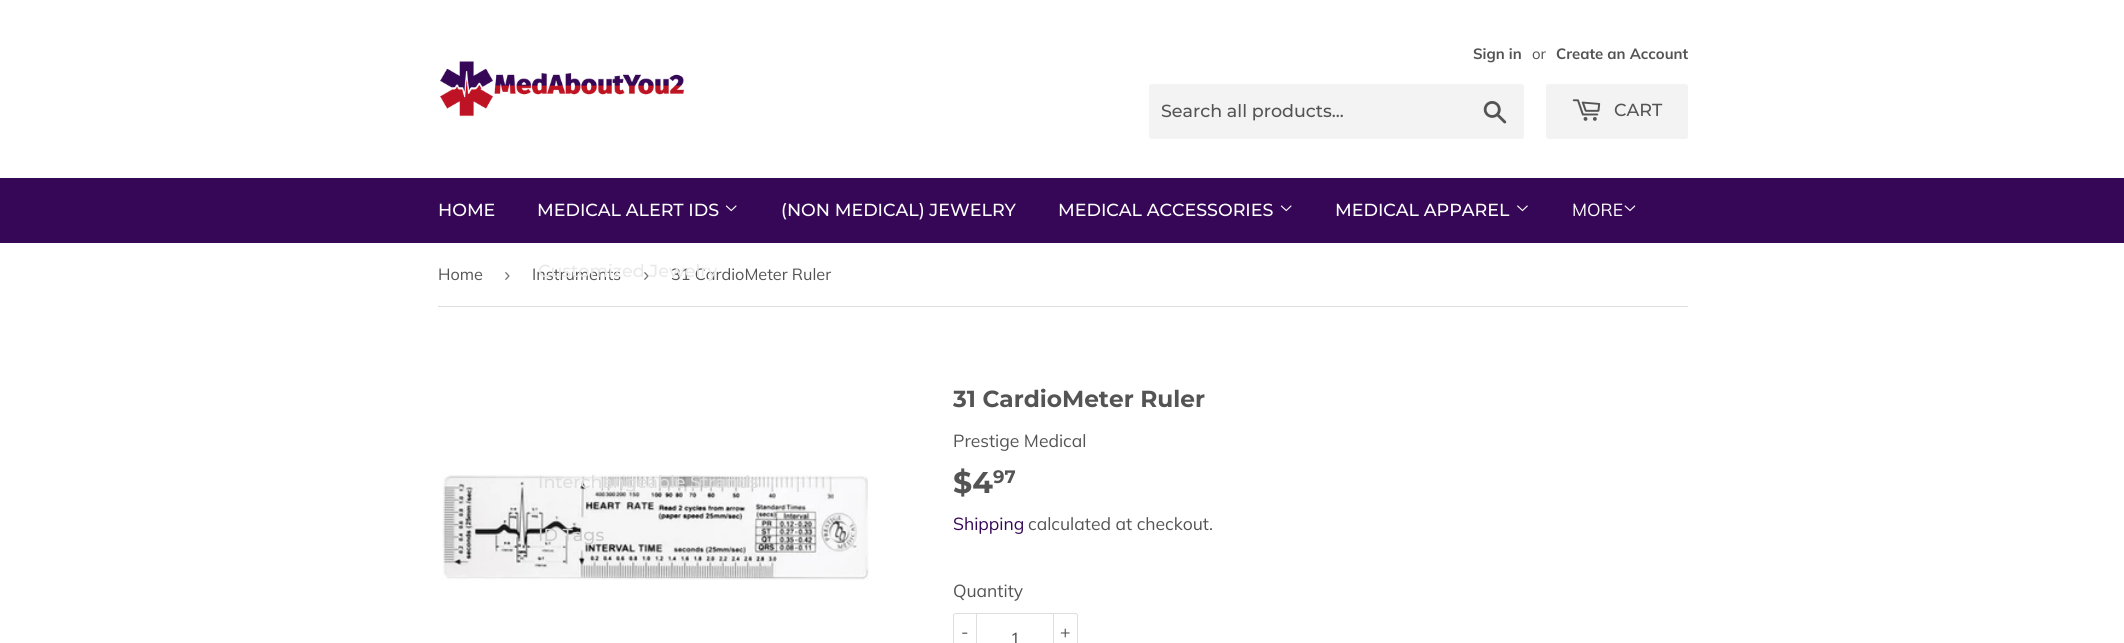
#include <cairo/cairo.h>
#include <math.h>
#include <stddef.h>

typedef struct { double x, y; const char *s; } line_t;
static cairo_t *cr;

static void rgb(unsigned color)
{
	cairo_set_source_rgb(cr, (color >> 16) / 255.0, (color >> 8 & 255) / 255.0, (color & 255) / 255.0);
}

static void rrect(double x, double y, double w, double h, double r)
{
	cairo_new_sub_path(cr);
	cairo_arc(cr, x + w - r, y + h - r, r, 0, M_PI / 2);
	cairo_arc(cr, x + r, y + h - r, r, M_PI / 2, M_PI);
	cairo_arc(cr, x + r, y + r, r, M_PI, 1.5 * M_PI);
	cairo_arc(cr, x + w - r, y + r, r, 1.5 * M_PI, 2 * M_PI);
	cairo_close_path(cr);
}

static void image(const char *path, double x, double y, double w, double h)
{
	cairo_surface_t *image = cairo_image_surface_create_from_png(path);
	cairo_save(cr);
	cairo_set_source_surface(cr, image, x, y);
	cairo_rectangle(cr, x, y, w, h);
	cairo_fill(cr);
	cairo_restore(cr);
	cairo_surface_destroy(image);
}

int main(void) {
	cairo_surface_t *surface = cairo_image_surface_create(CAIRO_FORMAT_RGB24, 2124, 643);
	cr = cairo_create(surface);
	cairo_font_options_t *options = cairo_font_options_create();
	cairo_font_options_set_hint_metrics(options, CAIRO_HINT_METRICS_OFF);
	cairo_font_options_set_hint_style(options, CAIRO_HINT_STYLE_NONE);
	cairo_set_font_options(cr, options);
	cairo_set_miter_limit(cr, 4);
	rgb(0xffffff);
	cairo_paint(cr);
	image("img/1.png", 440, 61, 244, 56);
	rgb(0xf3f3f3);
	rrect(1149, 84, 375, 55, 2.5);
	cairo_fill(cr);
	image("img/2.png", 1483, 101, 24, 23);
	rrect(1546, 84, 142, 55, 2.5);
	cairo_fill(cr);
	image("img/3.png", 1572, 99, 29, 22);
	rgb(0x350756);
	cairo_rectangle(cr, 0, 178, 2124, 65);
	cairo_fill(cr);
	image("img/4.png", 725, 205, 12, 7);
	image("img/4.png", 1280, 205, 12, 7);
	image("img/5.png", 1517, 205, 11, 7);
	image("img/6.png", 1624, 205, 12, 7);
	rgb(0xdedede);
	cairo_rectangle(cr, 438, 306, 1250, 1);
	cairo_fill(cr);
	image("img/7.png", 442, 474, 427, 106);
	rrect(953.5, 613.5, 124, 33, 2);
	cairo_set_line_width(cr, 1);
	cairo_stroke(cr);
	cairo_rectangle(cr, 976, 613, 1, 30);
	cairo_fill(cr);
	cairo_rectangle(cr, 1053, 613, 1, 30);
	cairo_fill(cr);
	cairo_select_font_face(cr, "Muli", CAIRO_FONT_SLANT_NORMAL, CAIRO_FONT_WEIGHT_BOLD);
	cairo_set_font_size(cr, 14.9);
	rgb(0x545454);
	cairo_move_to(cr, 1473, 59);
	cairo_show_text(cr, "Sign in");
	cairo_select_font_face(cr, "Muli", CAIRO_FONT_SLANT_NORMAL, CAIRO_FONT_WEIGHT_NORMAL);
	cairo_move_to(cr, 1532, 59);
	cairo_show_text(cr, "or");
	cairo_select_font_face(cr, "Muli", CAIRO_FONT_SLANT_NORMAL, CAIRO_FONT_WEIGHT_BOLD);
	cairo_move_to(cr, 1556, 59);
	cairo_show_text(cr, "Create an Account");
	cairo_select_font_face(cr, "Montserrat Medium", CAIRO_FONT_SLANT_NORMAL, CAIRO_FONT_WEIGHT_NORMAL);
	cairo_set_font_size(cr, 17.5);
	cairo_move_to(cr, 1161, 117);
	cairo_show_text(cr, "Search all products...");
	cairo_move_to(cr, 1614, 116);
	cairo_show_text(cr, "CART");
	rgb(0xffffff);
	cairo_move_to(cr, 438, 216);
	cairo_show_text(cr, "HOME");
	cairo_move_to(cr, 537, 216);
	cairo_show_text(cr, "MEDICAL ALERT IDS");
	rgb(0xdedede);
	cairo_move_to(cr, 538, 488);
	cairo_show_text(cr, "Interchangeable Strands");
	rgb(0xcbcbcb);
	cairo_move_to(cr, 538, 541);
	cairo_show_text(cr, "ID Tags");
	rgb(0xffffff);
	{
		static const line_t items[] = {
			{781, 216, "(NON MEDICAL) JEWELRY"},
			{1058, 216, "MEDICAL ACCESSORIES"},
			{1335, 216, "MEDICAL APPAREL"},
		};
		for (size_t i = 0; i < sizeof items / sizeof *items; i++) {
			cairo_move_to(cr, items[i].x, items[i].y);
			cairo_show_text(cr, items[i].s);
		}
	}
	cairo_select_font_face(cr, "Muli", CAIRO_FONT_SLANT_NORMAL, CAIRO_FONT_WEIGHT_NORMAL);
	cairo_move_to(cr, 1572, 216);
	cairo_show_text(cr, "MORE");
	cairo_set_font_size(cr, 16.25);
	rgb(0x545454);
	cairo_move_to(cr, 438, 280);
	cairo_show_text(cr, "Home");
	cairo_select_font_face(cr, "Liberation Sans", CAIRO_FONT_SLANT_NORMAL, CAIRO_FONT_WEIGHT_NORMAL);
	cairo_set_font_size(cr, 19);
	rgb(0x767676);
	cairo_move_to(cr, 504, 281);
	cairo_show_text(cr, "›");
	cairo_select_font_face(cr, "Muli", CAIRO_FONT_SLANT_NORMAL, CAIRO_FONT_WEIGHT_NORMAL);
	cairo_set_font_size(cr, 16.25);
	rgb(0x545454);
	cairo_move_to(cr, 532, 280);
	cairo_show_text(cr, "Instruments");
	cairo_select_font_face(cr, "Liberation Sans", CAIRO_FONT_SLANT_NORMAL, CAIRO_FONT_WEIGHT_NORMAL);
	cairo_set_font_size(cr, 19);
	rgb(0x767676);
	cairo_move_to(cr, 643, 281);
	cairo_show_text(cr, "›");
	cairo_select_font_face(cr, "Muli", CAIRO_FONT_SLANT_NORMAL, CAIRO_FONT_WEIGHT_NORMAL);
	cairo_set_font_size(cr, 16.25);
	rgb(0x545454);
	cairo_move_to(cr, 671, 280);
	cairo_show_text(cr, "31 CardioMeter Ruler");
	cairo_select_font_face(cr, "Montserrat Medium", CAIRO_FONT_SLANT_NORMAL, CAIRO_FONT_WEIGHT_NORMAL);
	cairo_set_font_size(cr, 17.5);
	rgb(0xe9e9e9);
	cairo_move_to(cr, 538, 277);
	cairo_show_text(cr, "Customized Jewelry");
	cairo_select_font_face(cr, "Montserrat", CAIRO_FONT_SLANT_NORMAL, CAIRO_FONT_WEIGHT_BOLD);
	cairo_set_font_size(cr, 23.25);
	rgb(0x545454);
	cairo_move_to(cr, 953, 407);
	cairo_show_text(cr, "31 CardioMeter Ruler");
	cairo_select_font_face(cr, "Muli", CAIRO_FONT_SLANT_NORMAL, CAIRO_FONT_WEIGHT_NORMAL);
	cairo_set_font_size(cr, 17.5);
	cairo_move_to(cr, 953, 447);
	cairo_show_text(cr, "Prestige Medical");
	cairo_select_font_face(cr, "Montserrat", CAIRO_FONT_SLANT_NORMAL, CAIRO_FONT_WEIGHT_BOLD);
	cairo_set_font_size(cr, 30);
	cairo_move_to(cr, 953, 493);
	cairo_show_text(cr, "$4");
	cairo_set_font_size(cr, 18);
	cairo_move_to(cr, 993, 483);
	cairo_show_text(cr, "97");
	cairo_select_font_face(cr, "Muli", CAIRO_FONT_SLANT_NORMAL, CAIRO_FONT_WEIGHT_NORMAL);
	cairo_set_font_size(cr, 17.5);
	rgb(0x350756);
	cairo_move_to(cr, 953, 530);
	cairo_show_text(cr, "Shipping");
	rgb(0x545454);
	{
		static const line_t items[] = {
			{1028, 530, "calculated at checkout."},
			{953, 597, "Quantity"},
			{961, 638, "-"},
			{1010, 645, "1"},
			{1060, 638, "+"},
		};
		for (size_t i = 0; i < sizeof items / sizeof *items; i++) {
			cairo_move_to(cr, items[i].x, items[i].y);
			cairo_show_text(cr, items[i].s);
		}
	}
	cairo_surface_write_to_png(surface, "page.png");
	cairo_font_options_destroy(options);
	cairo_destroy(cr);
	cairo_surface_destroy(surface);
	return 0;
}
